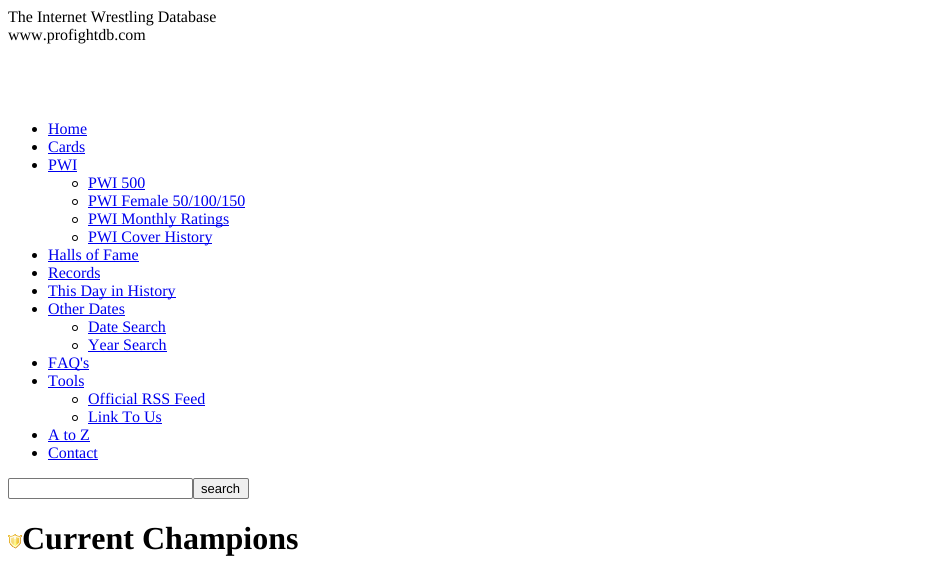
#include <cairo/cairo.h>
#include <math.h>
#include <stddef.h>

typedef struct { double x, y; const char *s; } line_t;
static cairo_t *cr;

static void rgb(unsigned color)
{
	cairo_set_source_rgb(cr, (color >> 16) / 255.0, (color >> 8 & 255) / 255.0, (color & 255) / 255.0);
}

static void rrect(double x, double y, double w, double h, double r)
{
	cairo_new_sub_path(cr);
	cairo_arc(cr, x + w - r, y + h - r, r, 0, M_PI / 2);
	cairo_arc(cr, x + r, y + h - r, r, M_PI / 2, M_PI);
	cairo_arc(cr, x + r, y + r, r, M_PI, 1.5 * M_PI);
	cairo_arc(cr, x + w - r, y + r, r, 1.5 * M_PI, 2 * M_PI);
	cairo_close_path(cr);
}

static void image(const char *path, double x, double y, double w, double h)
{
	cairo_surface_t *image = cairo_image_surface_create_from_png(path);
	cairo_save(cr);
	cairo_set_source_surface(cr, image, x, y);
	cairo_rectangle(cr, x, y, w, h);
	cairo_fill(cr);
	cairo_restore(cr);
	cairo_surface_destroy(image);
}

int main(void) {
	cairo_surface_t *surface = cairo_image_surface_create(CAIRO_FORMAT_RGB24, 931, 587);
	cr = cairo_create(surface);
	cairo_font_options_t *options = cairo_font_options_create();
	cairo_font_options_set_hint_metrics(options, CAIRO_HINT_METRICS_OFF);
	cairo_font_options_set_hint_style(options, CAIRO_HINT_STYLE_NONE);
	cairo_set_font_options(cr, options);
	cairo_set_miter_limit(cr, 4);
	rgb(0xffffff);
	cairo_paint(cr);
	rgb(0x000000);
	cairo_arc(cr, 34.5, 129.5, 2.5, 0, 2 * M_PI);
	cairo_fill(cr);
	rgb(0x0000ee);
	cairo_rectangle(cr, 48, 135, 39, 1);
	cairo_fill(cr);
	rgb(0x000000);
	cairo_arc(cr, 34.5, 147.5, 2.5, 0, 2 * M_PI);
	cairo_fill(cr);
	rgb(0x0000ee);
	cairo_rectangle(cr, 48, 153, 37, 1);
	cairo_fill(cr);
	rgb(0x000000);
	cairo_arc(cr, 34.5, 165.5, 2.5, 0, 2 * M_PI);
	cairo_fill(cr);
	rgb(0x0000ee);
	cairo_rectangle(cr, 48, 171, 29, 1);
	cairo_fill(cr);
	cairo_arc(cr, 75, 184, 2.5, 0, 2 * M_PI);
	rgb(0x000000);
	cairo_set_line_width(cr, 1);
	cairo_stroke(cr);
	rgb(0x0000ee);
	cairo_rectangle(cr, 88, 189, 57, 1);
	cairo_fill(cr);
	cairo_arc(cr, 75, 202, 2.5, 0, 2 * M_PI);
	rgb(0x000000);
	cairo_stroke(cr);
	rgb(0x0000ee);
	cairo_rectangle(cr, 88, 207, 157, 1);
	cairo_fill(cr);
	cairo_arc(cr, 75, 220, 2.5, 0, 2 * M_PI);
	rgb(0x000000);
	cairo_stroke(cr);
	rgb(0x0000ee);
	cairo_rectangle(cr, 88, 225, 141, 1);
	cairo_fill(cr);
	cairo_arc(cr, 75, 238, 2.5, 0, 2 * M_PI);
	rgb(0x000000);
	cairo_stroke(cr);
	rgb(0x0000ee);
	cairo_rectangle(cr, 88, 243, 124, 1);
	cairo_fill(cr);
	rgb(0x000000);
	cairo_arc(cr, 34.5, 255.5, 2.5, 0, 2 * M_PI);
	cairo_fill(cr);
	rgb(0x0000ee);
	cairo_rectangle(cr, 48, 261, 91, 1);
	cairo_fill(cr);
	rgb(0x000000);
	cairo_arc(cr, 34.5, 273.5, 2.5, 0, 2 * M_PI);
	cairo_fill(cr);
	rgb(0x0000ee);
	cairo_rectangle(cr, 48, 279, 52, 1);
	cairo_fill(cr);
	rgb(0x000000);
	cairo_arc(cr, 34.5, 291.5, 2.5, 0, 2 * M_PI);
	cairo_fill(cr);
	rgb(0x0000ee);
	cairo_rectangle(cr, 48, 297, 128, 1);
	cairo_fill(cr);
	rgb(0x000000);
	cairo_arc(cr, 34.5, 309.5, 2.5, 0, 2 * M_PI);
	cairo_fill(cr);
	rgb(0x0000ee);
	cairo_rectangle(cr, 48, 315, 77, 1);
	cairo_fill(cr);
	cairo_arc(cr, 75, 328, 2.5, 0, 2 * M_PI);
	rgb(0x000000);
	cairo_stroke(cr);
	rgb(0x0000ee);
	cairo_rectangle(cr, 88, 333, 78, 1);
	cairo_fill(cr);
	cairo_arc(cr, 75, 346, 2.5, 0, 2 * M_PI);
	rgb(0x000000);
	cairo_stroke(cr);
	rgb(0x0000ee);
	cairo_rectangle(cr, 88, 351, 79, 1);
	cairo_fill(cr);
	rgb(0x000000);
	cairo_arc(cr, 34.5, 363.5, 2.5, 0, 2 * M_PI);
	cairo_fill(cr);
	rgb(0x0000ee);
	cairo_rectangle(cr, 48, 369, 41, 1);
	cairo_fill(cr);
	rgb(0x000000);
	cairo_arc(cr, 34.5, 381.5, 2.5, 0, 2 * M_PI);
	cairo_fill(cr);
	rgb(0x0000ee);
	cairo_rectangle(cr, 48, 387, 36, 1);
	cairo_fill(cr);
	cairo_arc(cr, 75, 400, 2.5, 0, 2 * M_PI);
	rgb(0x000000);
	cairo_stroke(cr);
	rgb(0x0000ee);
	cairo_rectangle(cr, 88, 405, 117, 1);
	cairo_fill(cr);
	cairo_arc(cr, 75, 418, 2.5, 0, 2 * M_PI);
	rgb(0x000000);
	cairo_stroke(cr);
	rgb(0x0000ee);
	cairo_rectangle(cr, 88, 423, 74, 1);
	cairo_fill(cr);
	rgb(0x000000);
	cairo_arc(cr, 34.5, 435.5, 2.5, 0, 2 * M_PI);
	cairo_fill(cr);
	rgb(0x0000ee);
	cairo_rectangle(cr, 48, 441, 42, 1);
	cairo_fill(cr);
	rgb(0x000000);
	cairo_arc(cr, 34.5, 453.5, 2.5, 0, 2 * M_PI);
	cairo_fill(cr);
	rgb(0x0000ee);
	cairo_rectangle(cr, 48, 459, 50, 1);
	cairo_fill(cr);
	rrect(8.5, 478.5, 184, 20, 1.5);
	rgb(0x767676);
	cairo_stroke(cr);
	rgb(0xefefef);
	rrect(193.5, 478.5, 55, 20, 1.5);
	cairo_fill_preserve(cr);
	rgb(0x767676);
	cairo_stroke(cr);
	image("img/1.png", 8, 534, 14, 15);
	cairo_select_font_face(cr, "Liberation Serif", CAIRO_FONT_SLANT_NORMAL, CAIRO_FONT_WEIGHT_NORMAL);
	cairo_set_font_size(cr, 16);
	rgb(0x000000);
	cairo_move_to(cr, 8, 22);
	cairo_show_text(cr, "The Internet Wrestling Database");
	cairo_move_to(cr, 8, 40);
	cairo_show_text(cr, "www.profightdb.com");
	rgb(0x0000ee);
	{
		static const line_t items[] = {
			{48, 134, "Home"},
			{48, 152, "Cards"},
			{48, 170, "PWI"},
			{88, 188, "PWI 500"},
			{88, 206, "PWI Female 50/100/150"},
			{88, 224, "PWI Monthly Ratings"},
			{88, 242, "PWI Cover History"},
			{48, 260, "Halls of Fame"},
			{48, 278, "Records"},
			{48, 296, "This Day in History"},
			{48, 314, "Other Dates"},
			{88, 332, "Date Search"},
			{88, 350, "Year Search"},
			{48, 368, "FAQ's"},
			{48, 386, "Tools"},
			{88, 404, "Official RSS Feed"},
			{88, 422, "Link To Us"},
			{48, 440, "A to Z"},
			{48, 458, "Contact"},
		};
		for (size_t i = 0; i < sizeof items / sizeof *items; i++) {
			cairo_move_to(cr, items[i].x, items[i].y);
			cairo_show_text(cr, items[i].s);
		}
	}
	cairo_select_font_face(cr, "Liberation Sans", CAIRO_FONT_SLANT_NORMAL, CAIRO_FONT_WEIGHT_NORMAL);
	cairo_set_font_size(cr, 13);
	rgb(0x000000);
	cairo_move_to(cr, 201, 493);
	cairo_show_text(cr, "search");
	cairo_select_font_face(cr, "Liberation Serif", CAIRO_FONT_SLANT_NORMAL, CAIRO_FONT_WEIGHT_BOLD);
	cairo_set_font_size(cr, 32);
	cairo_move_to(cr, 22, 549);
	cairo_show_text(cr, "Current Champions");
	cairo_surface_write_to_png(surface, "page.png");
	cairo_font_options_destroy(options);
	cairo_destroy(cr);
	cairo_surface_destroy(surface);
	return 0;
}
